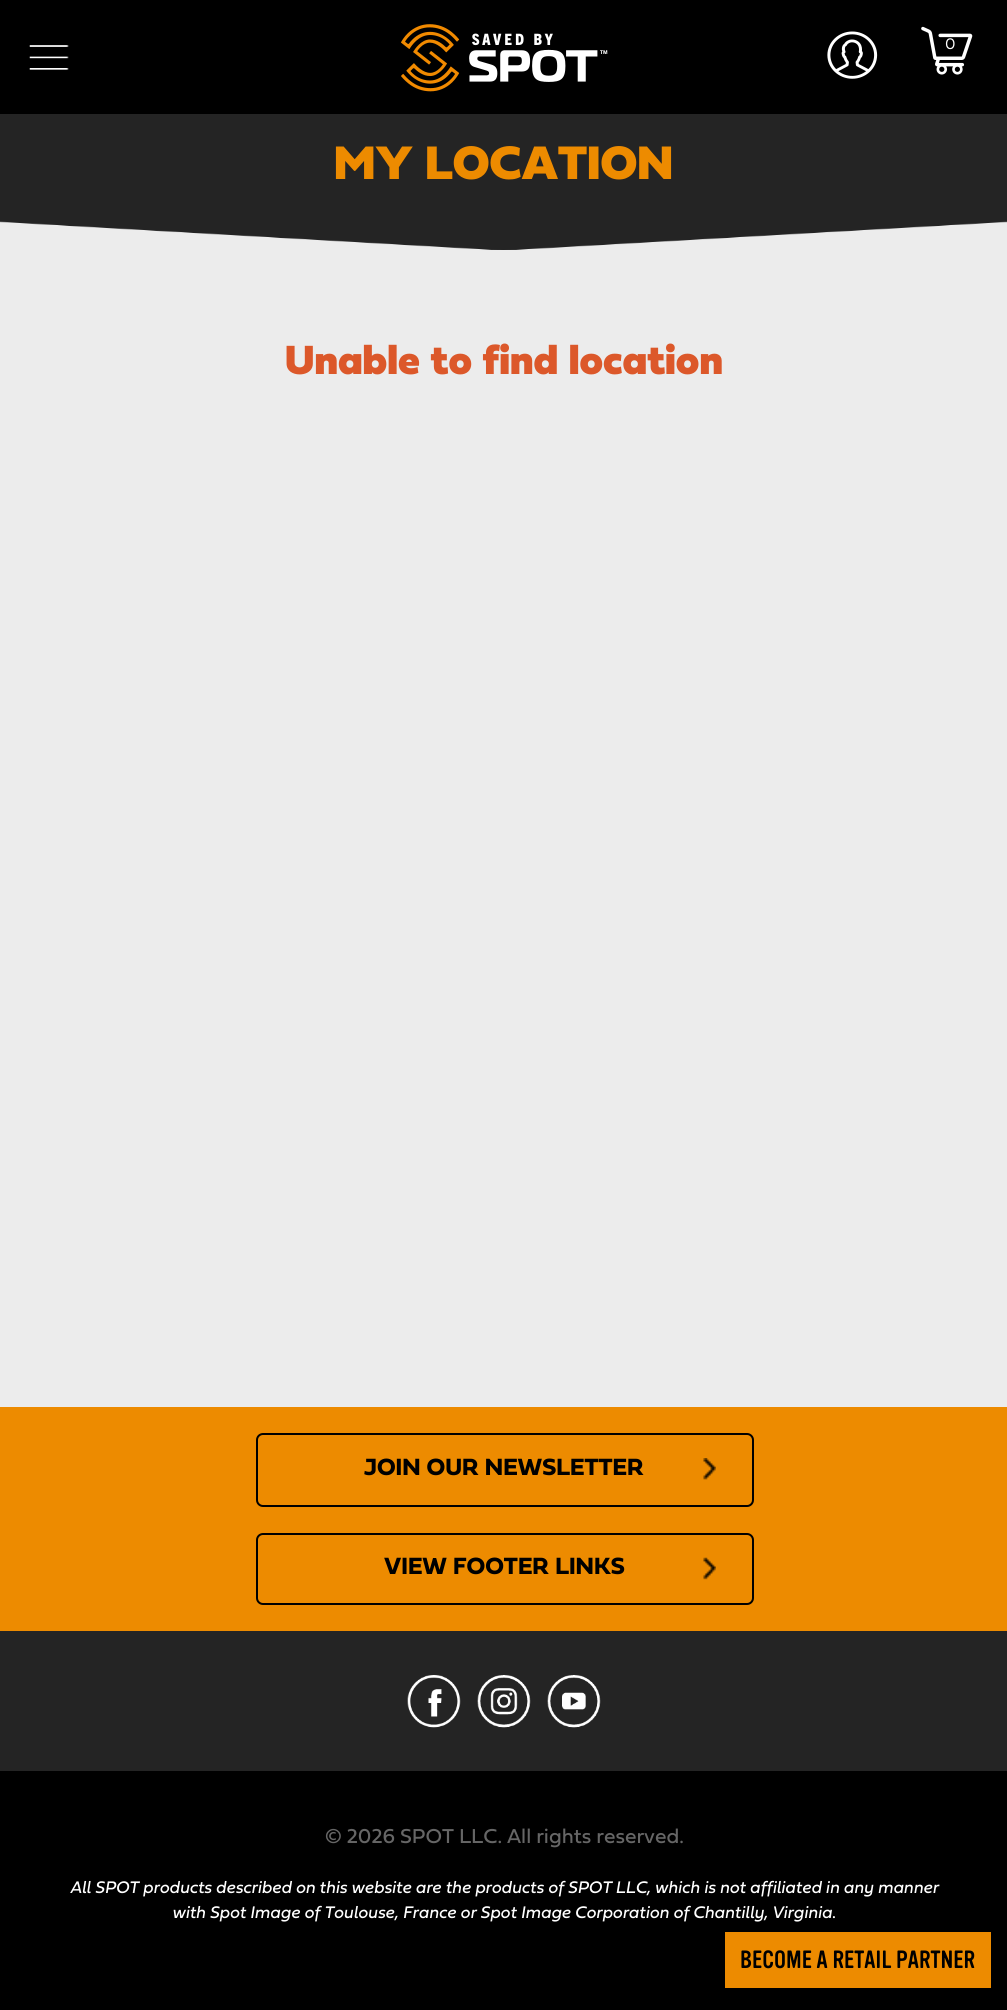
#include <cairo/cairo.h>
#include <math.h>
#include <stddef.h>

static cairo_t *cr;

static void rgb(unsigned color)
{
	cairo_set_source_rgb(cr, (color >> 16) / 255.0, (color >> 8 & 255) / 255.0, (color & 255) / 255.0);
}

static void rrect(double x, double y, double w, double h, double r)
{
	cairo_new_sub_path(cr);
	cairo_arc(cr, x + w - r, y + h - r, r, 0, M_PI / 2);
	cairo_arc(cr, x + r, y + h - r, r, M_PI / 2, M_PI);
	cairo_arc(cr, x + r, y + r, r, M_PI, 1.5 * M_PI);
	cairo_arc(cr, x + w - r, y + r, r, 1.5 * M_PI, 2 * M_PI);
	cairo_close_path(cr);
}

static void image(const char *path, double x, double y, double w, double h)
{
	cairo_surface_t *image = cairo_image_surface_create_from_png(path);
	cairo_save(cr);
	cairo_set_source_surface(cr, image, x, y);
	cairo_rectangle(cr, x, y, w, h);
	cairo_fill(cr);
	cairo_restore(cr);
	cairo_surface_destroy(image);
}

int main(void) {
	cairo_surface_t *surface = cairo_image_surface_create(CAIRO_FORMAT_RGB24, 1007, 2010);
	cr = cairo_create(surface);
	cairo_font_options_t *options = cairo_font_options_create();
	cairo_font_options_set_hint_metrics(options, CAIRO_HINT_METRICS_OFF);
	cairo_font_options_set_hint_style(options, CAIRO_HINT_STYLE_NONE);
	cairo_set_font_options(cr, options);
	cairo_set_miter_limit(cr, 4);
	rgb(0xececec);
	cairo_paint(cr);
	rgb(0x000000);
	cairo_rectangle(cr, 0, 0, 1007, 114);
	cairo_fill(cr);
	image("img/1.png", 29, 45, 40, 25);
	image("img/2.png", 401, 24, 207, 68);
	image("img/3.png", 827, 31, 51, 48);
	image("img/4.png", 921, 26, 52, 49);
	image("img/5.png", 0, 114, 1007, 136);
	rgb(0xed8b00);
	cairo_rectangle(cr, 0, 1407, 1007, 224);
	cairo_fill(cr);
	image("img/6.png", 703, 1458, 13, 22);
	rrect(257, 1434, 496, 72, 6);
	rgb(0x000000);
	cairo_stroke(cr);
	cairo_rectangle(cr, 0, 1771, 1007, 239);
	cairo_fill(cr);
	rgb(0x242424);
	cairo_rectangle(cr, 0, 1631, 1007, 140);
	cairo_fill(cr);
	image("img/7.png", 703, 1557, 13, 23);
	rrect(257, 1534, 496, 70, 6);
	rgb(0x000000);
	cairo_stroke(cr);
	image("img/8.png", 407, 1675, 54, 53);
	image("img/9.png", 477, 1675, 54, 53);
	image("img/10.png", 547, 1675, 54, 53);
	rgb(0xed8b00);
	cairo_rectangle(cr, 725, 1932, 266, 56);
	cairo_fill(cr);
	cairo_select_font_face(cr, "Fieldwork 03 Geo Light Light", CAIRO_FONT_SLANT_NORMAL, CAIRO_FONT_WEIGHT_NORMAL);
	cairo_set_font_size(cr, 16);
	rgb(0xffffff);
	cairo_move_to(cr, 945, 49);
	cairo_show_text(cr, "0");
	cairo_select_font_face(cr, "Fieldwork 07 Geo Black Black", CAIRO_FONT_SLANT_NORMAL, CAIRO_FONT_WEIGHT_NORMAL);
	cairo_set_font_size(cr, 49);
	rgb(0xed8b00);
	cairo_move_to(cr, 334, 179);
	cairo_show_text(cr, "MY LOCATION");
	cairo_set_font_size(cr, 42.5);
	rgb(0xdc582a);
	cairo_move_to(cr, 285, 374);
	cairo_show_text(cr, "Unable to find location");
	cairo_select_font_face(cr, "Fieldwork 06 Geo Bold", CAIRO_FONT_SLANT_NORMAL, CAIRO_FONT_WEIGHT_BOLD);
	cairo_set_font_size(cr, 24.5);
	rgb(0x000000);
	cairo_move_to(cr, 364, 1475);
	cairo_show_text(cr, "JOIN OUR NEWSLETTER");
	cairo_move_to(cr, 384, 1574);
	cairo_show_text(cr, "VIEW FOOTER LINKS");
	cairo_select_font_face(cr, "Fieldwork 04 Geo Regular", CAIRO_FONT_SLANT_NORMAL, CAIRO_FONT_WEIGHT_NORMAL);
	cairo_set_font_size(cr, 21);
	rgb(0x666666);
	cairo_move_to(cr, 325, 1843);
	cairo_show_text(cr, "© 2026 SPOT LLC. All rights reserved.");
	cairo_select_font_face(cr, "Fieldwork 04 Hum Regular", CAIRO_FONT_SLANT_ITALIC, CAIRO_FONT_WEIGHT_NORMAL);
	cairo_set_font_size(cr, 17.5);
	rgb(0xffffff);
	cairo_move_to(cr, 70, 1893);
	cairo_show_text(cr, "All SPOT products described on this website are the products of SPOT LLC, which is not affiliated in any manner");
	cairo_move_to(cr, 172, 1918);
	cairo_show_text(cr, "with Spot Image of Toulouse, France or Spot Image Corporation of Chantilly, Virginia");
	cairo_select_font_face(cr, "Fieldwork 04 Geo Regular", CAIRO_FONT_SLANT_NORMAL, CAIRO_FONT_WEIGHT_NORMAL);
	cairo_move_to(cr, 832, 1918);
	cairo_show_text(cr, ".");
	cairo_select_font_face(cr, "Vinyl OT", CAIRO_FONT_SLANT_NORMAL, CAIRO_FONT_WEIGHT_NORMAL);
	cairo_set_font_size(cr, 24.5);
	rgb(0x000000);
	cairo_move_to(cr, 740, 1968);
	cairo_show_text(cr, "BECOME A RETAIL PARTNER");
	cairo_surface_write_to_png(surface, "page.png");
	cairo_font_options_destroy(options);
	cairo_destroy(cr);
	cairo_surface_destroy(surface);
	return 0;
}
